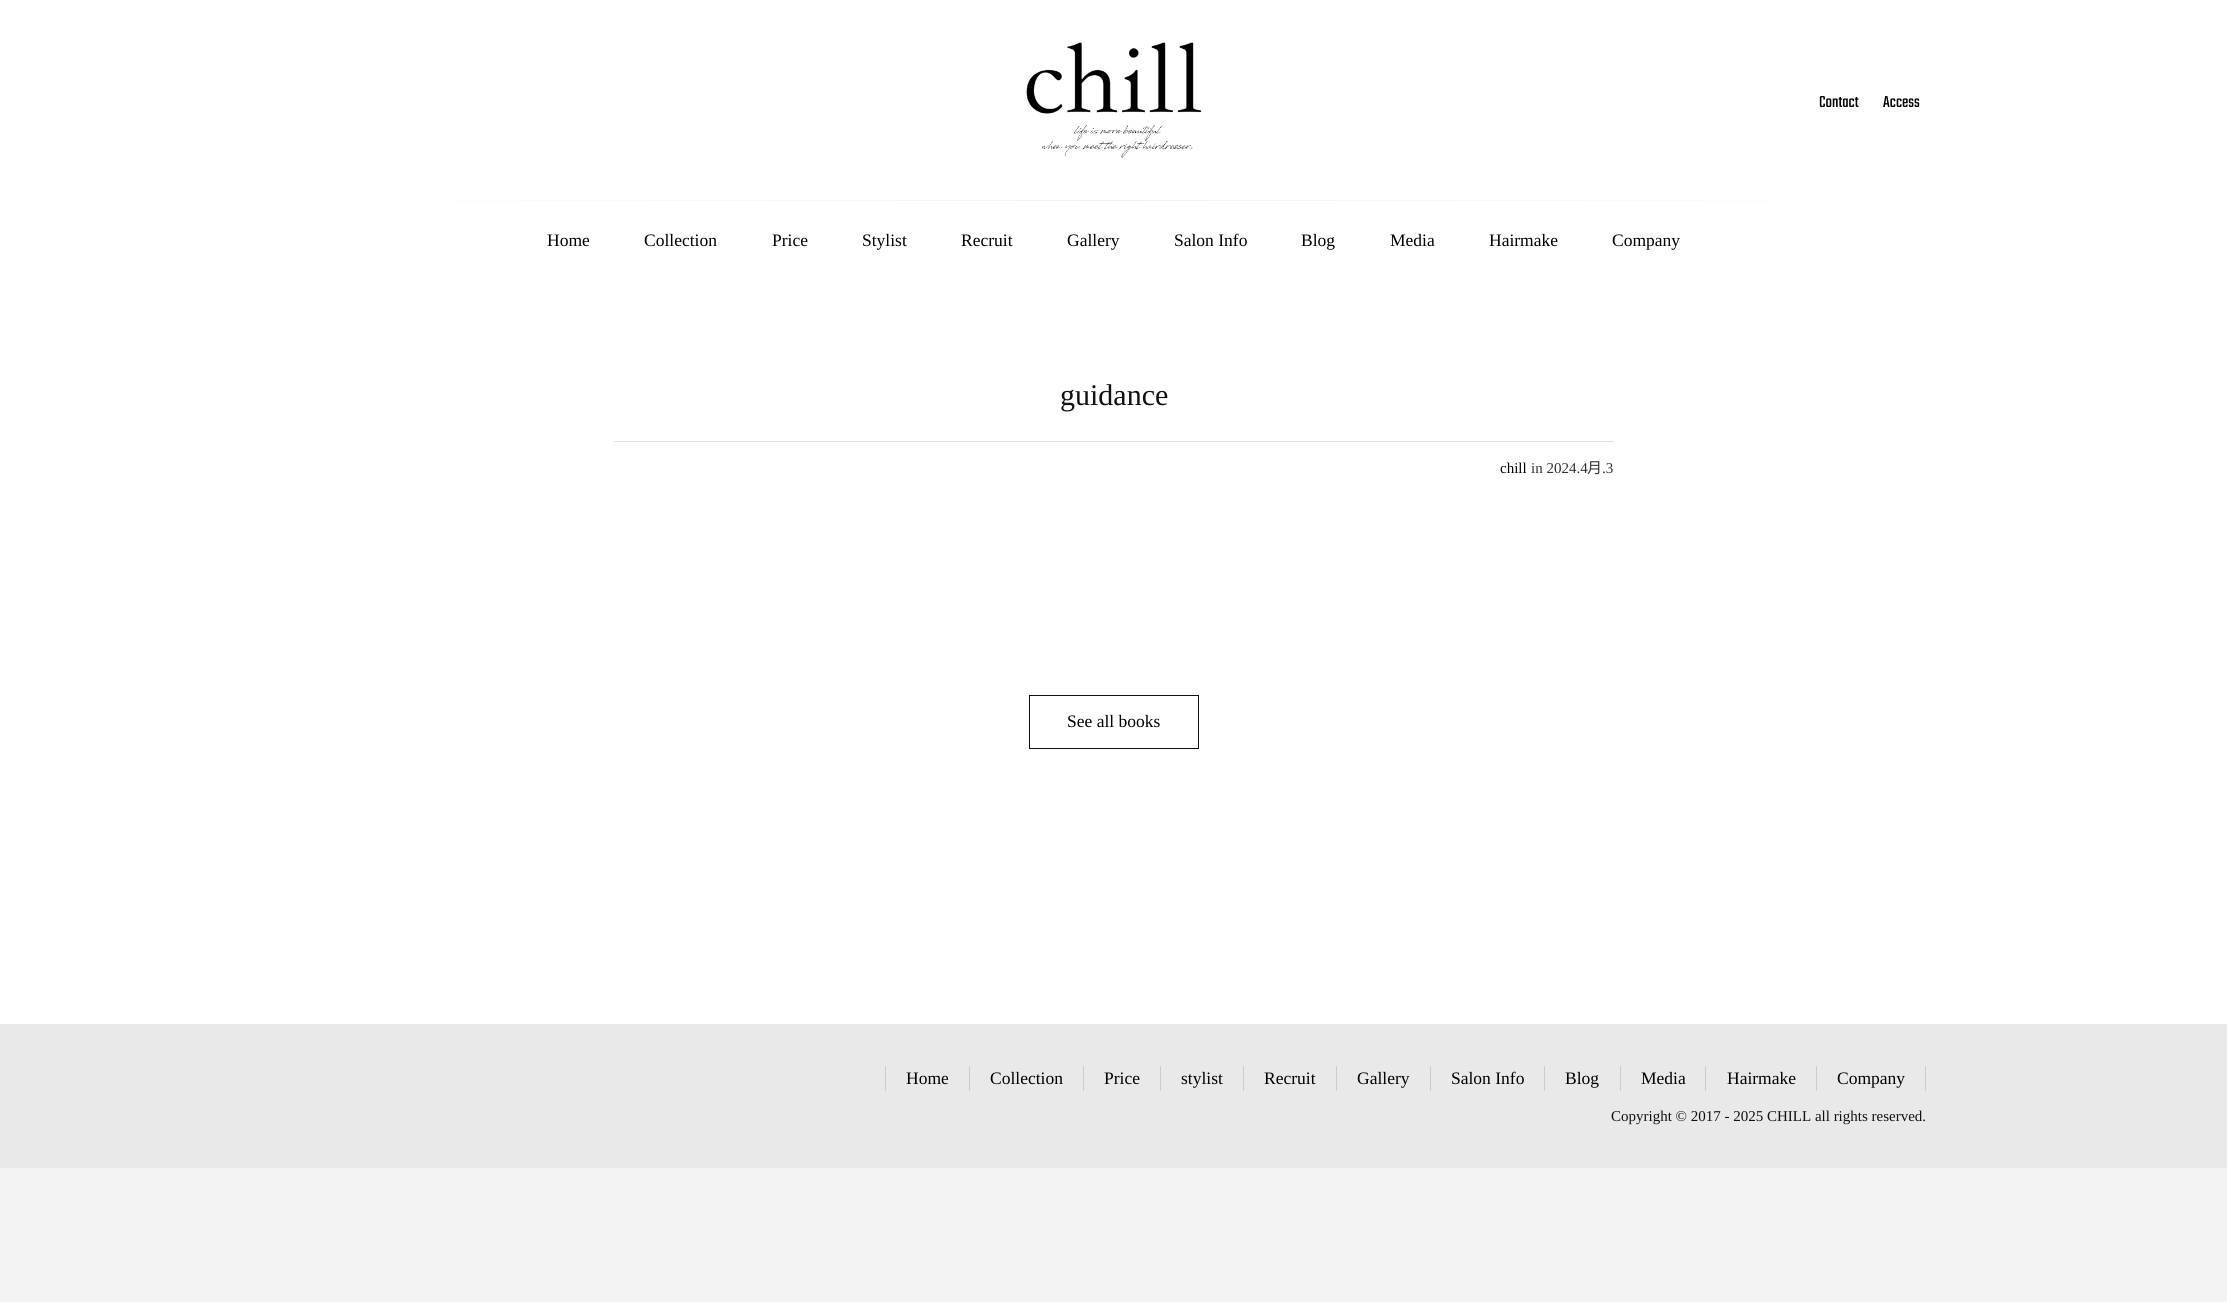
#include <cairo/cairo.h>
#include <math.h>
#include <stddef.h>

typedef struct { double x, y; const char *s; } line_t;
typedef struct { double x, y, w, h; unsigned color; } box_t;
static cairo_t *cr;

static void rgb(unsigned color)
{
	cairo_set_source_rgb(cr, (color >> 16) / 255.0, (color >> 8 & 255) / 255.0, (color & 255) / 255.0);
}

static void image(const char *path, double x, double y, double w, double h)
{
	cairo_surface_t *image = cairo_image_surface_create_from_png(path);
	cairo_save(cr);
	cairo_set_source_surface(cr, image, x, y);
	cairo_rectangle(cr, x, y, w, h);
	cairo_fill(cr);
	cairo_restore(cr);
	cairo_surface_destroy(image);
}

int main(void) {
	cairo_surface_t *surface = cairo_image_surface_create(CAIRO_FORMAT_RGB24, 2227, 1302);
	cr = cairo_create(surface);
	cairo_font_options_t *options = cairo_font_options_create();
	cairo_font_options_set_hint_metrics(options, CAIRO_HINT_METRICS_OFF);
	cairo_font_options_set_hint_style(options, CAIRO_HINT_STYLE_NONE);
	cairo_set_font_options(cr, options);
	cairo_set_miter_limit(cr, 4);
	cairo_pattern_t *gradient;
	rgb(0xf3f3f3);
	cairo_paint(cr);
	rgb(0xffffff);
	cairo_rectangle(cr, 0, 0, 2227, 1024);
	cairo_fill(cr);
	image("img/1.png", 1026, 42, 176, 116);
	gradient = cairo_pattern_create_linear(301, 201, 1926, 201);
	cairo_pattern_add_color_stop_rgba(gradient, 0, 1, 1, 1, 1);
	cairo_pattern_add_color_stop_rgba(gradient, 0.5, 0.949, 0.949, 0.949, 1);
	cairo_pattern_add_color_stop_rgba(gradient, 1, 1, 1, 1, 1);
	cairo_set_source(cr, gradient);
	cairo_pattern_destroy(gradient);
	cairo_rectangle(cr, 457, 200, 1313, 1);
	cairo_fill(cr);
	rgb(0xdfdfdf);
	cairo_rectangle(cr, 614, 441, 1000, 1);
	cairo_fill(cr);
	cairo_rectangle(cr, 1029.5, 695.5, 169, 53);
	rgb(0x111111);
	cairo_set_line_width(cr, 1);
	cairo_stroke(cr);
	{
		static const box_t items[] = {
			{0, 1024, 2227, 144, 0xe9e9e9},
			{885, 1066, 1, 25, 0xcccccc},
			{969, 1066, 1, 25, 0xcccccc},
			{1083, 1066, 1, 25, 0xcccccc},
			{1160, 1066, 1, 25, 0xcccccc},
			{1243, 1066, 1, 25, 0xcccccc},
			{1336, 1066, 1, 25, 0xcccccc},
			{1430, 1066, 1, 25, 0xcccccc},
			{1544, 1066, 1, 25, 0xcccccc},
			{1620, 1066, 1, 25, 0xcccccc},
			{1705, 1066, 1, 25, 0xcccccc},
			{1925, 1066, 1, 25, 0xcccccc},
			{1816, 1066, 1, 25, 0xcccccc},
		};
		for (size_t i = 0; i < sizeof items / sizeof *items; i++) {
			rgb(items[i].color);
			cairo_rectangle(cr, items[i].x, items[i].y, items[i].w, items[i].h);
			cairo_fill(cr);
		}
	}
	cairo_select_font_face(cr, "Teko", CAIRO_FONT_SLANT_NORMAL, CAIRO_FONT_WEIGHT_NORMAL);
	cairo_set_font_size(cr, 17.5);
	rgb(0x000000);
	cairo_move_to(cr, 1819, 107);
	cairo_show_text(cr, "Contact");
	cairo_move_to(cr, 1883, 107);
	cairo_show_text(cr, "Access");
	cairo_select_font_face(cr, "Liberation Serif", CAIRO_FONT_SLANT_NORMAL, CAIRO_FONT_WEIGHT_NORMAL);
	{
		static const line_t items[] = {
			{547, 246, "Home"},
			{644, 246, "Collection"},
			{772, 246, "Price"},
			{862, 246, "Stylist"},
			{961, 246, "Recruit"},
			{1067, 246, "Gallery"},
			{1174, 246, "Salon Info"},
			{1301, 246, "Blog"},
			{1390, 246, "Media"},
			{1489, 246, "Hairmake"},
			{1612, 246, "Company"},
		};
		for (size_t i = 0; i < sizeof items / sizeof *items; i++) {
			cairo_move_to(cr, items[i].x, items[i].y);
			cairo_show_text(cr, items[i].s);
		}
	}
	cairo_set_font_size(cr, 30);
	rgb(0x111111);
	cairo_move_to(cr, 1060, 405);
	cairo_show_text(cr, "guidance");
	cairo_set_font_size(cr, 15);
	rgb(0x000000);
	cairo_move_to(cr, 1500, 473);
	cairo_show_text(cr, "chill");
	rgb(0x333333);
	cairo_move_to(cr, 1531, 473);
	cairo_show_text(cr, "in 2024.4");
	cairo_select_font_face(cr, "Noto Sans JP", CAIRO_FONT_SLANT_NORMAL, CAIRO_FONT_WEIGHT_NORMAL);
	cairo_move_to(cr, 1587, 473);
	cairo_show_text(cr, "月");
	cairo_select_font_face(cr, "Liberation Serif", CAIRO_FONT_SLANT_NORMAL, CAIRO_FONT_WEIGHT_NORMAL);
	cairo_move_to(cr, 1602, 473);
	cairo_show_text(cr, ".3");
	cairo_set_font_size(cr, 17.5);
	rgb(0x000000);
	{
		static const line_t items[] = {
			{1067, 727, "See all books"},
			{906, 1084, "Home"},
			{990, 1084, "Collection"},
			{1104, 1084, "Price"},
			{1181, 1084, "stylist"},
			{1264, 1084, "Recruit"},
			{1357, 1084, "Gallery"},
			{1451, 1084, "Salon Info"},
			{1565, 1084, "Blog"},
			{1641, 1084, "Media"},
			{1727, 1084, "Hairmake"},
			{1837, 1084, "Company"},
		};
		for (size_t i = 0; i < sizeof items / sizeof *items; i++) {
			cairo_move_to(cr, items[i].x, items[i].y);
			cairo_show_text(cr, items[i].s);
		}
	}
	cairo_set_font_size(cr, 15);
	rgb(0x111111);
	cairo_move_to(cr, 1611, 1121);
	cairo_show_text(cr, "Copyright © 2017 - 2025 CHILL all rights reserved.");
	cairo_surface_write_to_png(surface, "page.png");
	cairo_font_options_destroy(options);
	cairo_destroy(cr);
	cairo_surface_destroy(surface);
	return 0;
}
